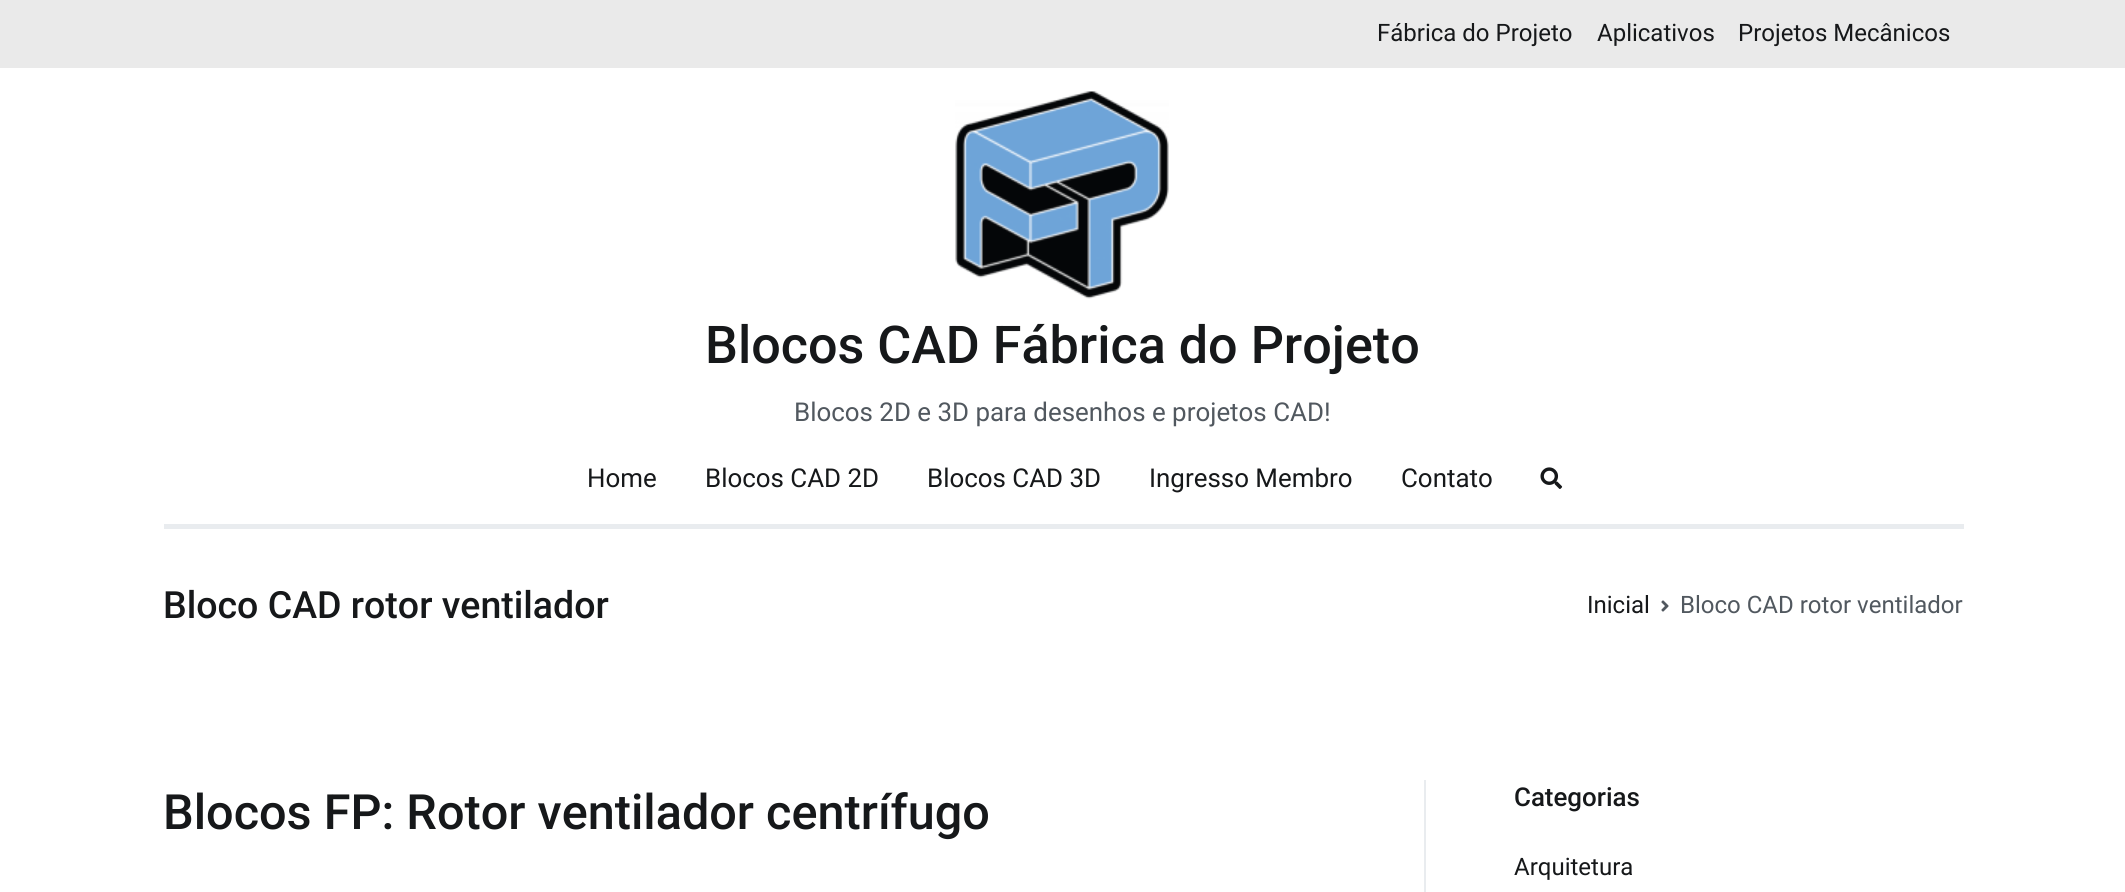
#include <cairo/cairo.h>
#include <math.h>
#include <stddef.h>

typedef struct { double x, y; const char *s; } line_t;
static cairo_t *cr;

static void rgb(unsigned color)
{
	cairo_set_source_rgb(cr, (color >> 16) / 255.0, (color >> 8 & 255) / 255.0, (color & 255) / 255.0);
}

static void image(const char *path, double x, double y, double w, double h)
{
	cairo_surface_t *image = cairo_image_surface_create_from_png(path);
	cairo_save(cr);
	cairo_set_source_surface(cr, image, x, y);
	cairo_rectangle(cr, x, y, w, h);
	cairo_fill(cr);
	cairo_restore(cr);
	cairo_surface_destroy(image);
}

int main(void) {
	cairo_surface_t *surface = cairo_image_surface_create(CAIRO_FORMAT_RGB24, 2125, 892);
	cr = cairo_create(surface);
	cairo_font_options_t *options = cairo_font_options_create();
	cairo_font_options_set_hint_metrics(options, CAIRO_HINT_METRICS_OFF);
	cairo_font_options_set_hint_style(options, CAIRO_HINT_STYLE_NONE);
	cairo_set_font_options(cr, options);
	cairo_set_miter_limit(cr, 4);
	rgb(0xffffff);
	cairo_paint(cr);
	rgb(0xeaeaea);
	cairo_rectangle(cr, 0, 0, 2125, 68);
	cairo_fill(cr);
	image("img/1.png", 955, 91, 214, 208);
	rgb(0xe9ecef);
	cairo_rectangle(cr, 164, 524, 1800, 5);
	cairo_fill(cr);
	image("img/2.png", 1540, 467, 23, 22);
	image("img/3.png", 1661, 600, 8, 12);
	cairo_rectangle(cr, 1424, 780, 2, 112);
	cairo_fill(cr);
	cairo_select_font_face(cr, "Roboto", CAIRO_FONT_SLANT_NORMAL, CAIRO_FONT_WEIGHT_NORMAL);
	cairo_set_font_size(cr, 24);
	rgb(0x16181a);
	{
		static const line_t items[] = {
			{1377, 41, "Fábrica do Projeto"},
			{1597, 41, "Aplicativos"},
			{1738, 41, "Projetos Mecânicos"},
		};
		for (size_t i = 0; i < sizeof items / sizeof *items; i++) {
			cairo_move_to(cr, items[i].x, items[i].y);
			cairo_show_text(cr, items[i].s);
		}
	}
	cairo_select_font_face(cr, "Roboto Medium", CAIRO_FONT_SLANT_NORMAL, CAIRO_FONT_WEIGHT_NORMAL);
	cairo_set_font_size(cr, 52.1);
	cairo_move_to(cr, 705, 363);
	cairo_show_text(cr, "Blocos CAD Fábrica do Projeto");
	cairo_select_font_face(cr, "Roboto", CAIRO_FONT_SLANT_NORMAL, CAIRO_FONT_WEIGHT_NORMAL);
	cairo_set_font_size(cr, 25.9);
	rgb(0x51585f);
	cairo_move_to(cr, 794, 421);
	cairo_show_text(cr, "Blocos 2D e 3D para desenhos e projetos CAD!");
	rgb(0x16181a);
	{
		static const line_t items[] = {
			{587, 487, "Home"},
			{705, 487, "Blocos CAD 2D"},
			{927, 487, "Blocos CAD 3D"},
			{1149, 487, "Ingresso Membro"},
			{1401, 487, "Contato"},
		};
		for (size_t i = 0; i < sizeof items / sizeof *items; i++) {
			cairo_move_to(cr, items[i].x, items[i].y);
			cairo_show_text(cr, items[i].s);
		}
	}
	cairo_select_font_face(cr, "Roboto Medium", CAIRO_FONT_SLANT_NORMAL, CAIRO_FONT_WEIGHT_NORMAL);
	cairo_set_font_size(cr, 37.5);
	cairo_move_to(cr, 163, 618);
	cairo_show_text(cr, "Bloco CAD rotor ventilador");
	cairo_select_font_face(cr, "Roboto", CAIRO_FONT_SLANT_NORMAL, CAIRO_FONT_WEIGHT_NORMAL);
	cairo_set_font_size(cr, 24);
	cairo_move_to(cr, 1587, 613);
	cairo_show_text(cr, "Inicial");
	rgb(0x51585f);
	cairo_move_to(cr, 1680, 613);
	cairo_show_text(cr, "Bloco CAD rotor ventilador");
	cairo_select_font_face(cr, "Roboto Medium", CAIRO_FONT_SLANT_NORMAL, CAIRO_FONT_WEIGHT_NORMAL);
	cairo_set_font_size(cr, 48.6);
	rgb(0x16181a);
	cairo_move_to(cr, 163, 829);
	cairo_show_text(cr, "Blocos FP: Rotor ventilador centrífugo");
	cairo_set_font_size(cr, 25.9);
	cairo_move_to(cr, 1514, 806);
	cairo_show_text(cr, "Categorias");
	cairo_select_font_face(cr, "Roboto", CAIRO_FONT_SLANT_NORMAL, CAIRO_FONT_WEIGHT_NORMAL);
	cairo_set_font_size(cr, 24);
	cairo_move_to(cr, 1514, 875);
	cairo_show_text(cr, "Arquitetura");
	cairo_surface_write_to_png(surface, "page.png");
	cairo_font_options_destroy(options);
	cairo_destroy(cr);
	cairo_surface_destroy(surface);
	return 0;
}
